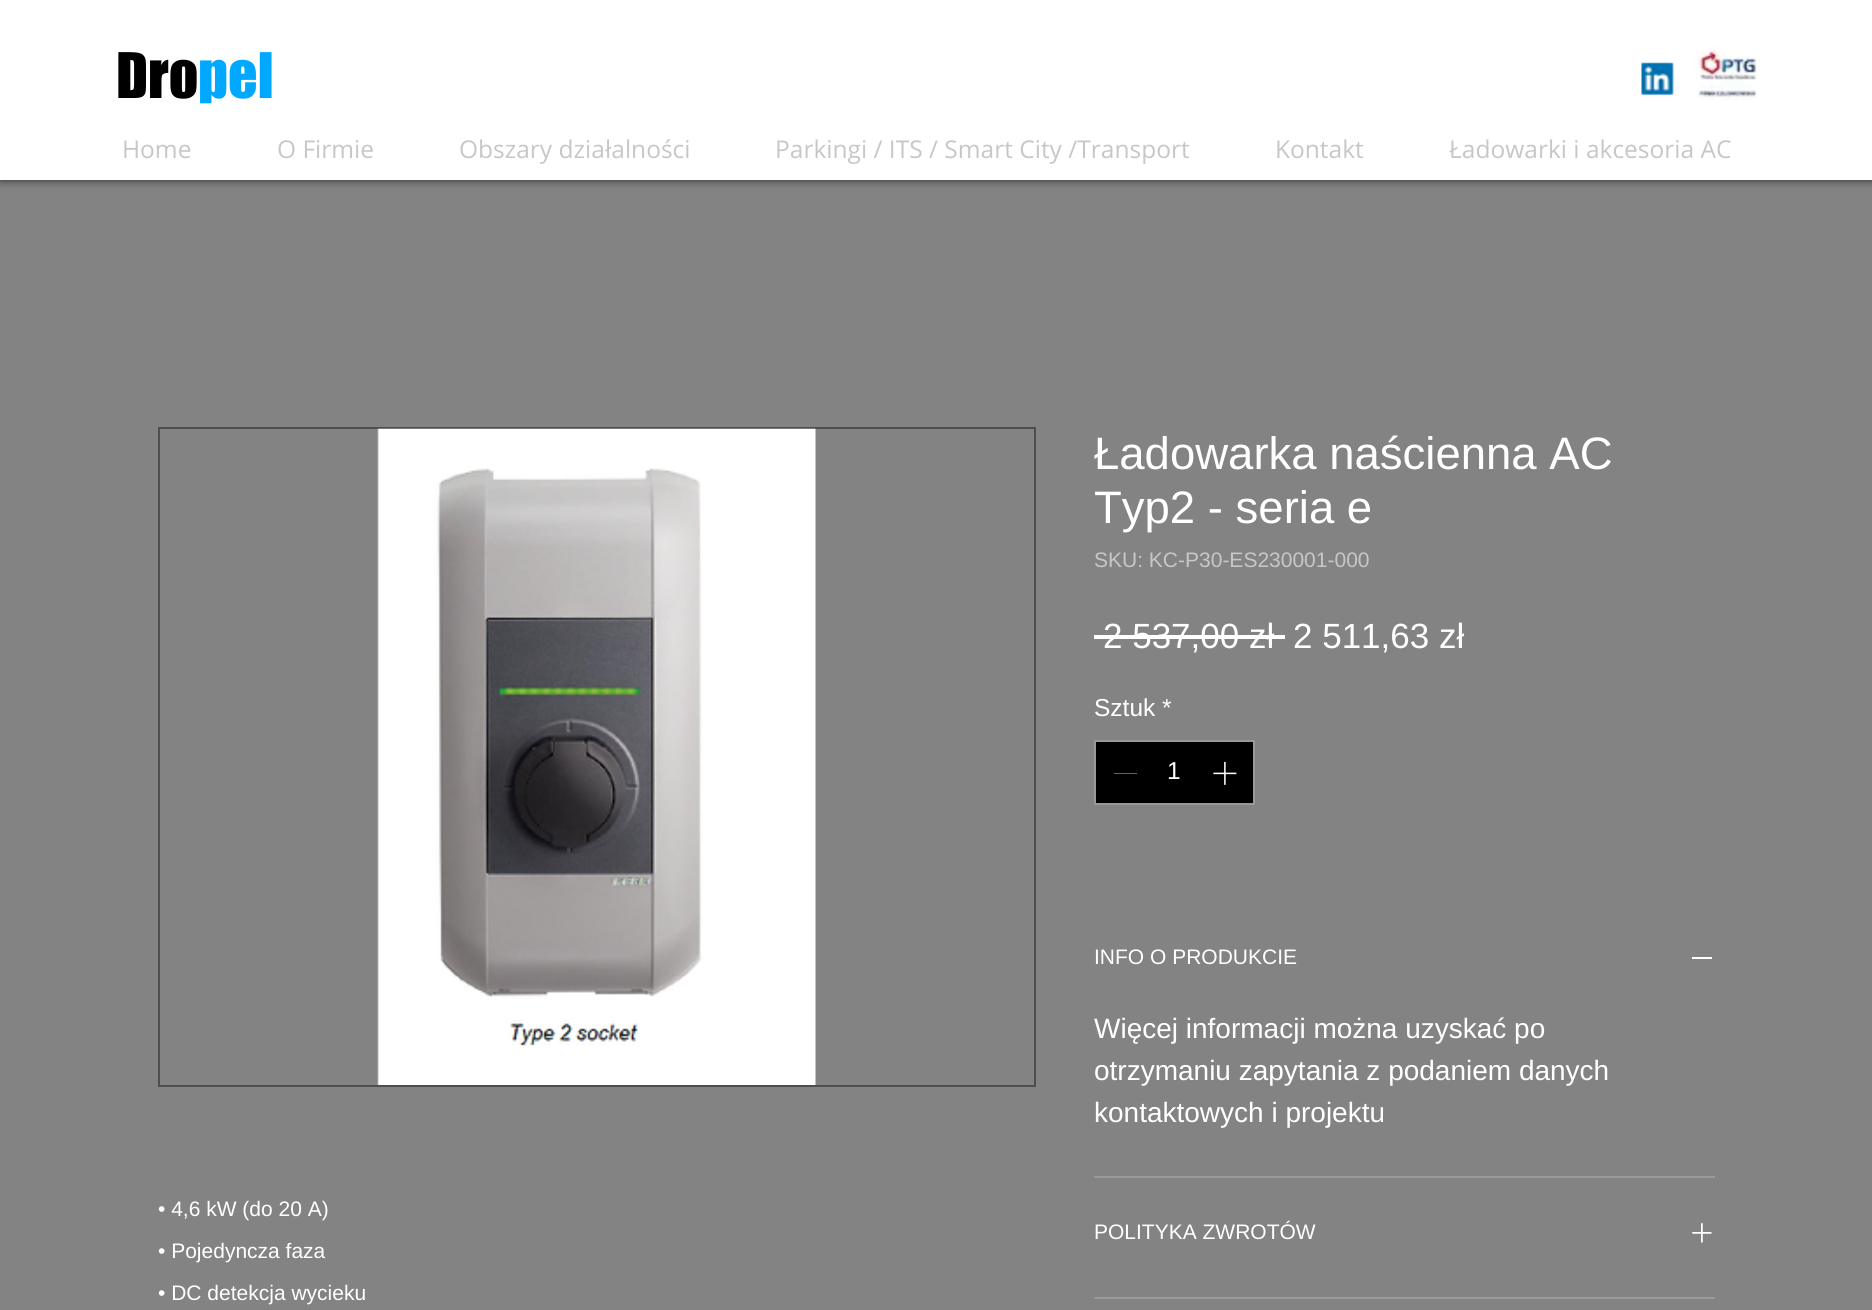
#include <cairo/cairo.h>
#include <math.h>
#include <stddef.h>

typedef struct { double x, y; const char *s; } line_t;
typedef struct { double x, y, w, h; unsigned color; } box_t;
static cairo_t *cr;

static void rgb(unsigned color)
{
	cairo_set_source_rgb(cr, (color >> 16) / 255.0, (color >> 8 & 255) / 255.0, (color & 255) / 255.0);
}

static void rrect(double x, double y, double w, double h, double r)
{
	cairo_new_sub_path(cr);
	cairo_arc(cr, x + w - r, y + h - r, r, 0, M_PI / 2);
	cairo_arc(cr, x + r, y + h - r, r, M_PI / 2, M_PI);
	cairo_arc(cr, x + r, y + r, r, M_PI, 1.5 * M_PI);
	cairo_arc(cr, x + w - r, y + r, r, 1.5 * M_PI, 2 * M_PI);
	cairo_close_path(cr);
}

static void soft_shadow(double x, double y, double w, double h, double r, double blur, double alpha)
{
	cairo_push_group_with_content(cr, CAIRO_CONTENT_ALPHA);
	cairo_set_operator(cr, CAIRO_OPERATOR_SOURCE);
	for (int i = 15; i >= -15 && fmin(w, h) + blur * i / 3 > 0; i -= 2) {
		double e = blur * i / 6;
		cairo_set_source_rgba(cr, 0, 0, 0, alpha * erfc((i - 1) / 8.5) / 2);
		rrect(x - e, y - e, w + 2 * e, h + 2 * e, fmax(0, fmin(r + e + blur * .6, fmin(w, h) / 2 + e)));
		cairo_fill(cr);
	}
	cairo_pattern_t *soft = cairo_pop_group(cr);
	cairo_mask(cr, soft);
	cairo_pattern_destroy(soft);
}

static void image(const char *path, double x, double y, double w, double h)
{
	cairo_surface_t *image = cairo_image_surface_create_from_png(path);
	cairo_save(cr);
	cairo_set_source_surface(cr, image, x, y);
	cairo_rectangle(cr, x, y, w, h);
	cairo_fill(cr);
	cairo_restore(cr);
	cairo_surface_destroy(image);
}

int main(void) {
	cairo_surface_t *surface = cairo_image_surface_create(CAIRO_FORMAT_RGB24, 1872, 1310);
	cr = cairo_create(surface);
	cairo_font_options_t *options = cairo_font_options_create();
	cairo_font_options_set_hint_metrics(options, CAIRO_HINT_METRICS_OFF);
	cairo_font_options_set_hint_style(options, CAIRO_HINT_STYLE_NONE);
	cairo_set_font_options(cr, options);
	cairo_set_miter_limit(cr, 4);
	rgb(0xffffff);
	cairo_paint(cr);
	rgb(0x838383);
	cairo_rectangle(cr, 0, 180, 1872, 1130);
	cairo_fill(cr);
	cairo_save(cr);
	cairo_rectangle(cr, 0, 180, 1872, 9);
	cairo_clip(cr);
	rgb(0x000000);
	soft_shadow(0, 0, 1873, 180, 0, 4.5, 0.7);
	cairo_restore(cr);
	image("img/1.png", 1641, 62, 33, 33);
	image("img/2.png", 1693, 44, 69, 56);
	rgb(0xffffff);
	cairo_rectangle(cr, 1094, 635, 191, 4);
	cairo_fill(cr);
	rgb(0x000000);
	cairo_rectangle(cr, 1095, 741, 159, 63);
	cairo_fill_preserve(cr);
	rgb(0x999999);
	cairo_stroke(cr);
	rgb(0x646464);
	cairo_rectangle(cr, 1114, 773, 23, 1);
	cairo_fill(cr);
	image("img/3.png", 1213, 761, 24, 24);
	{
		static const box_t items[] = {
			{1094, 1176, 621, 2, 0x9a9a9a},
			{1692, 957, 20, 2, 0xffffff},
			{1094, 1297, 621, 2, 0x9a9a9a},
		};
		for (size_t i = 0; i < sizeof items / sizeof *items; i++) {
			rgb(items[i].color);
			cairo_rectangle(cr, items[i].x, items[i].y, items[i].w, items[i].h);
			cairo_fill(cr);
		}
	}
	image("img/4.png", 1692, 1223, 20, 20);
	cairo_rectangle(cr, 159, 428, 876, 658);
	rgb(0x4e4e4e);
	cairo_stroke(cr);
	image("img/5.png", 377, 428, 439, 657);
	cairo_select_font_face(cr, "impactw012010", CAIRO_FONT_SLANT_NORMAL, CAIRO_FONT_WEIGHT_NORMAL);
	cairo_set_font_size(cr, 58);
	rgb(0x000000);
	cairo_move_to(cr, 116, 98);
	cairo_show_text(cr, "Dro");
	rgb(0x00a9ff);
	cairo_move_to(cr, 198, 98);
	cairo_show_text(cr, "pel");
	cairo_select_font_face(cr, "Open Sans", CAIRO_FONT_SLANT_NORMAL, CAIRO_FONT_WEIGHT_NORMAL);
	cairo_set_font_size(cr, 24.5);
	rgb(0xc7c7c7);
	{
		static const line_t items[] = {
			{122, 158, "Home"},
			{277, 158, "O Firmie"},
			{459, 158, "Obszary działalności"},
			{775, 158, "Parkingi / ITS / Smart City /Transport"},
			{1275, 158, "Kontakt"},
			{1449, 158, "Ładowarki i akcesoria AC"},
		};
		for (size_t i = 0; i < sizeof items / sizeof *items; i++) {
			cairo_move_to(cr, items[i].x, items[i].y);
			cairo_show_text(cr, items[i].s);
		}
	}
	cairo_select_font_face(cr, "Liberation Sans", CAIRO_FONT_SLANT_NORMAL, CAIRO_FONT_WEIGHT_NORMAL);
	cairo_set_font_size(cr, 45.5);
	rgb(0xffffff);
	cairo_move_to(cr, 1094, 469);
	cairo_show_text(cr, "Ładowarka naścienna AC");
	cairo_move_to(cr, 1094, 523);
	cairo_show_text(cr, "Typ2 - seria e");
	cairo_set_font_size(cr, 21);
	rgb(0xc7c7c7);
	cairo_move_to(cr, 1094, 567);
	cairo_show_text(cr, "SKU: KC-P30-ES230001-000");
	cairo_set_font_size(cr, 35);
	rgb(0xffffff);
	cairo_move_to(cr, 1103, 648);
	cairo_show_text(cr, "2 537,00 zł");
	cairo_move_to(cr, 1293, 648);
	cairo_show_text(cr, "2 511,63 zł");
	cairo_set_font_size(cr, 24.5);
	cairo_move_to(cr, 1094, 716);
	cairo_show_text(cr, "Sztuk *");
	cairo_move_to(cr, 1167, 779);
	cairo_show_text(cr, "1");
	cairo_set_font_size(cr, 21);
	cairo_move_to(cr, 1094, 964);
	cairo_show_text(cr, "INFO O PRODUKCIE");
	cairo_set_font_size(cr, 28);
	{
		static const line_t items[] = {
			{1094, 1038, "Więcej informacji można uzyskać po"},
			{1094, 1080, "otrzymaniu zapytania z podaniem danych"},
			{1094, 1122, "kontaktowych i projektu"},
		};
		for (size_t i = 0; i < sizeof items / sizeof *items; i++) {
			cairo_move_to(cr, items[i].x, items[i].y);
			cairo_show_text(cr, items[i].s);
		}
	}
	cairo_set_font_size(cr, 21);
	{
		static const line_t items[] = {
			{1094, 1239, "POLITYKA ZWROTÓW"},
			{158, 1216, "• 4,6 kW (do 20 A)"},
			{158, 1258, "• Pojedyncza faza"},
			{158, 1300, "• DC detekcja wycieku"},
		};
		for (size_t i = 0; i < sizeof items / sizeof *items; i++) {
			cairo_move_to(cr, items[i].x, items[i].y);
			cairo_show_text(cr, items[i].s);
		}
	}
	cairo_surface_write_to_png(surface, "page.png");
	cairo_font_options_destroy(options);
	cairo_destroy(cr);
	cairo_surface_destroy(surface);
	return 0;
}
